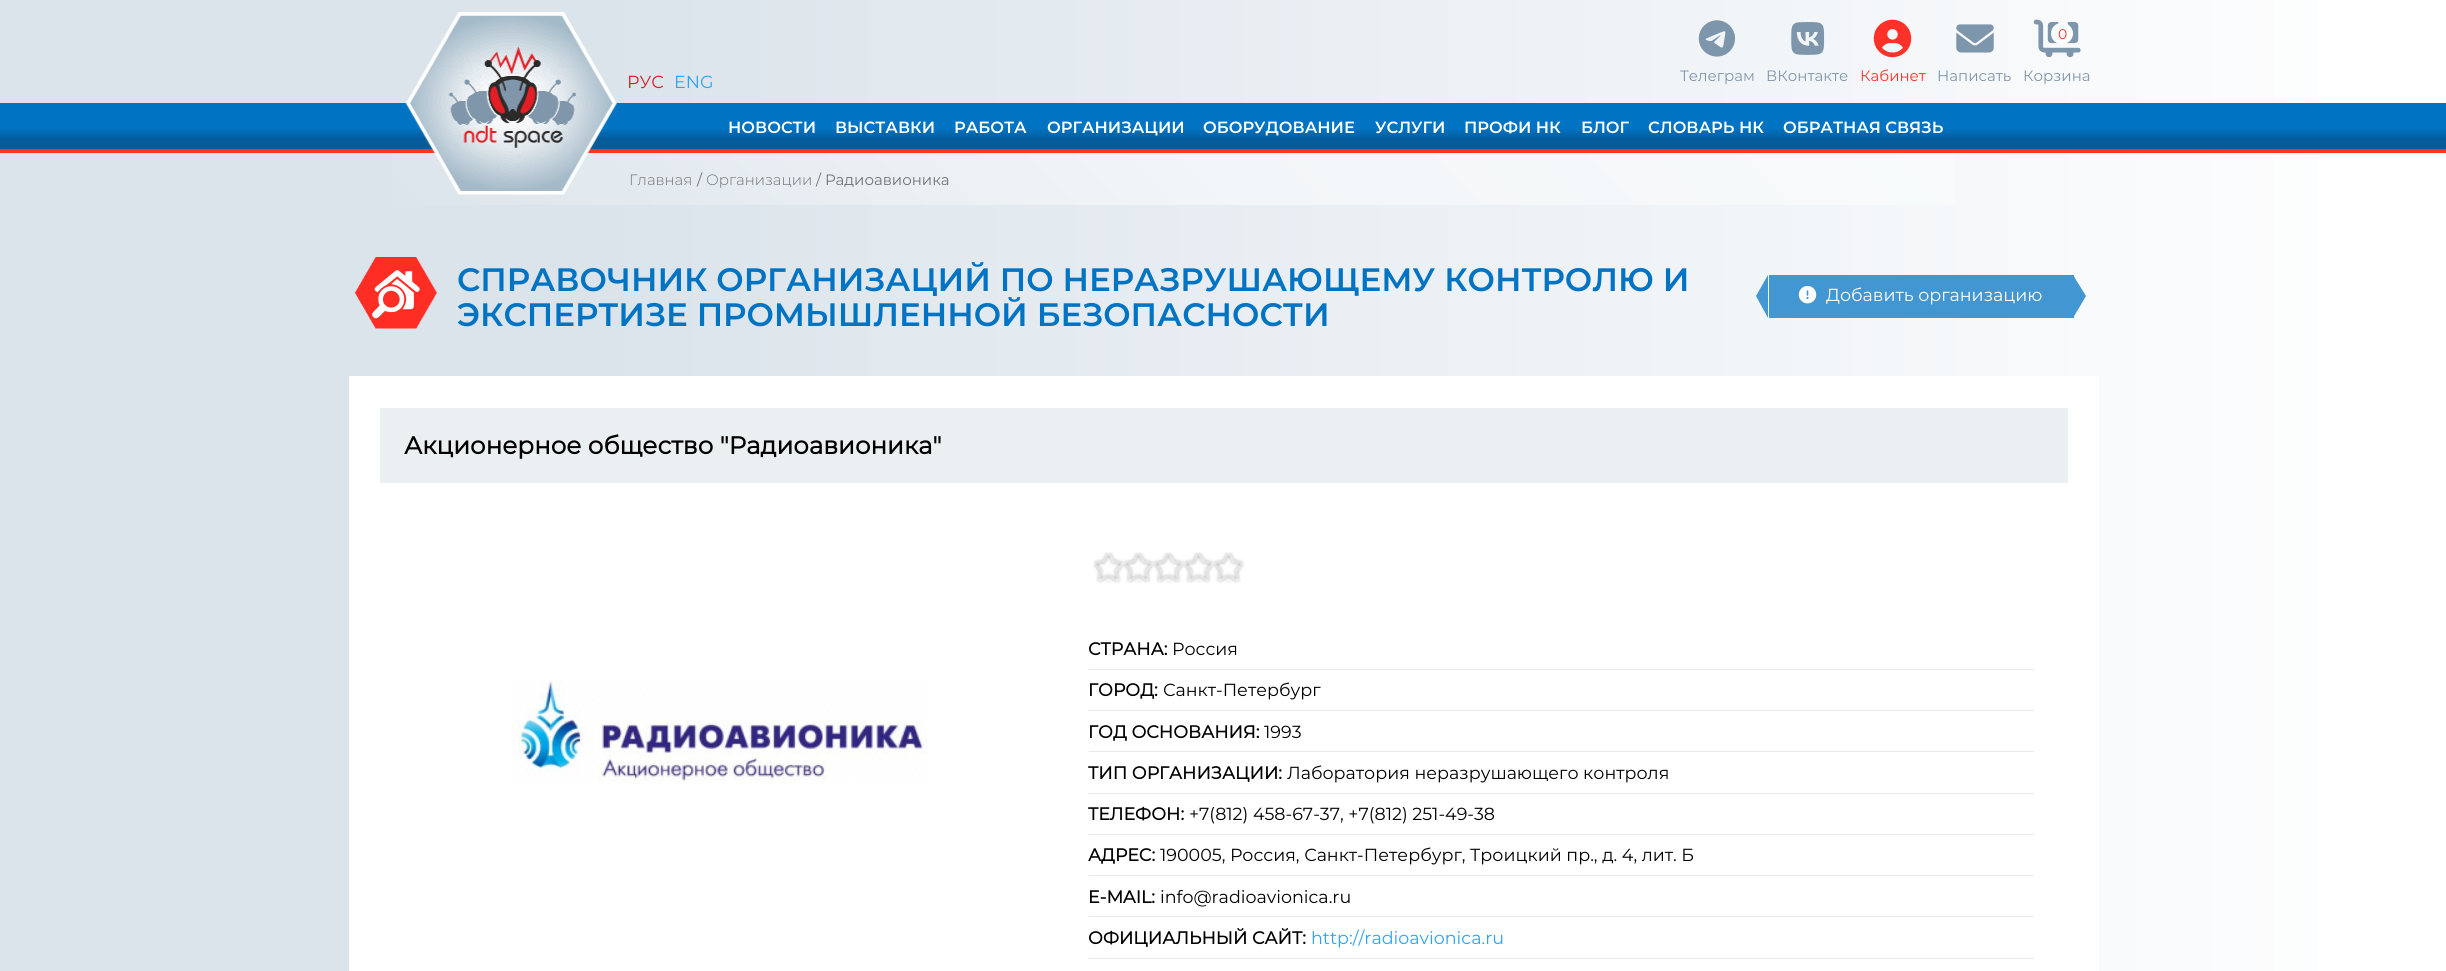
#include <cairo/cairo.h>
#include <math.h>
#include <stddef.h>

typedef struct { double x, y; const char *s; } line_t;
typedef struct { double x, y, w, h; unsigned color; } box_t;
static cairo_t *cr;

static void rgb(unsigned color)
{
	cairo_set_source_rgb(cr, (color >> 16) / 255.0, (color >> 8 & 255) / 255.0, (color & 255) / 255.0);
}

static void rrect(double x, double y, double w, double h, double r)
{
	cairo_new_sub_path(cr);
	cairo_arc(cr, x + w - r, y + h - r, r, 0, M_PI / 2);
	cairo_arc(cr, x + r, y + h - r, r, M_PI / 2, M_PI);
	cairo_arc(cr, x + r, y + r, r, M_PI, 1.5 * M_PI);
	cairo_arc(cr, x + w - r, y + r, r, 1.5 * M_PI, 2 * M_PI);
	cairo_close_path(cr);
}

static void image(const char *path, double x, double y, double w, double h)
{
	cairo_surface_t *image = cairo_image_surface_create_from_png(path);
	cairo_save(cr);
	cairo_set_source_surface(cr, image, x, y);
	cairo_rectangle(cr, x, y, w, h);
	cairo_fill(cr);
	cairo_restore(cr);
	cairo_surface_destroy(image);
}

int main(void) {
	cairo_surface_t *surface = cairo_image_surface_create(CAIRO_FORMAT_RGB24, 2446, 971);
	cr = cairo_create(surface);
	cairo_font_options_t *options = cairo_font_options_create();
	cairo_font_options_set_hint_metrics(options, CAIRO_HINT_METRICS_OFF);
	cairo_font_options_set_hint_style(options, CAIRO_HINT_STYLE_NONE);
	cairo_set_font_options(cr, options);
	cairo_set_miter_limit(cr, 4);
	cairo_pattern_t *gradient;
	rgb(0xffffff);
	cairo_paint(cr);
	gradient = cairo_pattern_create_linear(0, 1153, 2446, 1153);
	cairo_pattern_add_color_stop_rgba(gradient, 0.24, 0.859, 0.894, 0.922, 1);
	cairo_pattern_add_color_stop_rgba(gradient, 1, 1, 1, 1, 1);
	cairo_set_source(cr, gradient);
	cairo_pattern_destroy(gradient);
	cairo_rectangle(cr, 0, 0, 2317, 971);
	cairo_fill(cr);
	gradient = cairo_pattern_create_linear(1223, 149, 1223, 103);
	cairo_pattern_add_color_stop_rgba(gradient, 0.21, 0.016, 0.361, 0.604, 1);
	cairo_pattern_add_color_stop_rgba(gradient, 0.45, 0.004, 0.451, 0.765, 1);
	cairo_set_source(cr, gradient);
	cairo_pattern_destroy(gradient);
	cairo_rectangle(cr, 0, 103, 2446, 46);
	cairo_fill(cr);
	rgb(0xff3129);
	cairo_rectangle(cr, 0, 149, 2446, 4);
	cairo_fill(cr);
	gradient = cairo_pattern_create_linear(771, 627, 1677, -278);
	cairo_pattern_add_color_stop_rgba(gradient, 0, 0.859, 0.894, 0.922, 1);
	cairo_pattern_add_color_stop_rgba(gradient, 0.5, 0.953, 0.965, 0.973, 1);
	cairo_pattern_add_color_stop_rgba(gradient, 1, 0.976, 0.984, 0.988, 1);
	cairo_set_source(cr, gradient);
	cairo_pattern_destroy(gradient);
	cairo_rectangle(cr, 392, 153, 1563, 52);
	cairo_fill(cr);
	image("img/1.png", 405, 12, 212, 183);
	image("img/2.png", 1698, 20, 38, 37);
	image("img/3.png", 1791, 22, 34, 33);
	image("img/4.png", 1873, 19, 39, 39);
	image("img/5.png", 1956, 24, 38, 29);
	image("img/6.png", 2033, 19, 48, 39);
	rgb(0xffffff);
	rrect(2051, 23, 22, 21, 10.5);
	cairo_fill(cr);
	image("img/7.png", 354, 257, 84, 72);
	image("img/8.png", 372, 270, 48, 49);
	rgb(0x4296d1);
	cairo_rectangle(cr, 1769, 275, 305, 43);
	cairo_fill(cr);
	cairo_new_path(cr);
	cairo_move_to(cr, 1768, 275);
	cairo_line_to(cr, 1768, 318);
	cairo_line_to(cr, 1756, 296);
	cairo_close_path(cr);
	cairo_fill(cr);
	image("img/9.png", 1798, 285, 19, 19);
	cairo_new_path(cr);
	cairo_move_to(cr, 2073, 318);
	cairo_line_to(cr, 2073, 275);
	cairo_line_to(cr, 2086, 296);
	cairo_close_path(cr);
	cairo_fill(cr);
	rgb(0xffffff);
	cairo_rectangle(cr, 349, 376, 1750, 595);
	cairo_fill(cr);
	rgb(0xeaeff1);
	cairo_rectangle(cr, 380, 408, 1688, 75);
	cairo_fill(cr);
	image("img/10.png", 511, 680, 416, 104);
	image("img/11.png", 1093, 552, 151, 31);
	{
		static const box_t items[] = {
			{1089, 669, 945, 1, 0xe7eaea},
			{1089, 710, 945, 1, 0xe7eaea},
			{1089, 751, 945, 1, 0xe7eaea},
			{1089, 793, 945, 1, 0xe7eaea},
			{1089, 834, 945, 1, 0xe7eaea},
			{1089, 875, 945, 1, 0xe7eaea},
			{1089, 916, 945, 1, 0xe7eaea},
			{1089, 958, 945, 1, 0xe7eaea},
		};
		for (size_t i = 0; i < sizeof items / sizeof *items; i++) {
			rgb(items[i].color);
			cairo_rectangle(cr, items[i].x, items[i].y, items[i].w, items[i].h);
			cairo_fill(cr);
		}
	}
	cairo_select_font_face(cr, "Montserrat", CAIRO_FONT_SLANT_NORMAL, CAIRO_FONT_WEIGHT_NORMAL);
	cairo_set_font_size(cr, 17.5);
	rgb(0xd61e21);
	cairo_move_to(cr, 627, 88);
	cairo_show_text(cr, "РУС");
	rgb(0x2ea3f2);
	cairo_move_to(cr, 674, 88);
	cairo_show_text(cr, "ENG");
	cairo_set_font_size(cr, 15);
	rgb(0x7e96ab);
	cairo_move_to(cr, 1680, 81);
	cairo_show_text(cr, "Телеграм");
	cairo_move_to(cr, 1766, 81);
	cairo_show_text(cr, "ВКонтакте");
	rgb(0xff3129);
	cairo_move_to(cr, 1860, 81);
	cairo_show_text(cr, "Кабинет");
	rgb(0x7e96ab);
	cairo_move_to(cr, 1937, 81);
	cairo_show_text(cr, "Написать");
	cairo_set_font_size(cr, 14);
	rgb(0xff3129);
	cairo_move_to(cr, 2058, 39);
	cairo_show_text(cr, "0");
	cairo_set_font_size(cr, 15);
	rgb(0x7e96ab);
	cairo_move_to(cr, 2023, 81);
	cairo_show_text(cr, "Корзина");
	cairo_select_font_face(cr, "Montserrat SemiBold", CAIRO_FONT_SLANT_NORMAL, CAIRO_FONT_WEIGHT_NORMAL);
	cairo_set_font_size(cr, 16.25);
	rgb(0xffffff);
	{
		static const line_t items[] = {
			{728, 133, "НОВОСТИ"},
			{835, 133, "ВЫСТАВКИ"},
			{954, 133, "РАБОТА"},
			{1047, 133, "ОРГАНИЗАЦИИ"},
			{1203, 133, "ОБОРУДОВАНИЕ"},
			{1375, 133, "УСЛУГИ"},
			{1464, 133, "ПРОФИ НК"},
			{1581, 133, "БЛОГ"},
			{1648, 133, "СЛОВАРЬ НК"},
			{1783, 133, "ОБРАТНАЯ СВЯЗЬ"},
		};
		for (size_t i = 0; i < sizeof items / sizeof *items; i++) {
			cairo_move_to(cr, items[i].x, items[i].y);
			cairo_show_text(cr, items[i].s);
		}
	}
	cairo_select_font_face(cr, "Montserrat Light", CAIRO_FONT_SLANT_NORMAL, CAIRO_FONT_WEIGHT_NORMAL);
	cairo_set_font_size(cr, 15);
	rgb(0x737272);
	cairo_move_to(cr, 629, 185);
	cairo_show_text(cr, "Главная");
	cairo_select_font_face(cr, "Montserrat", CAIRO_FONT_SLANT_NORMAL, CAIRO_FONT_WEIGHT_NORMAL);
	cairo_move_to(cr, 697, 185);
	cairo_show_text(cr, "/");
	cairo_select_font_face(cr, "Montserrat Light", CAIRO_FONT_SLANT_NORMAL, CAIRO_FONT_WEIGHT_NORMAL);
	cairo_move_to(cr, 706, 185);
	cairo_show_text(cr, "Организации");
	cairo_select_font_face(cr, "Montserrat", CAIRO_FONT_SLANT_NORMAL, CAIRO_FONT_WEIGHT_NORMAL);
	cairo_move_to(cr, 816, 185);
	cairo_show_text(cr, "/ Радиоавионика");
	cairo_select_font_face(cr, "Montserrat SemiBold", CAIRO_FONT_SLANT_NORMAL, CAIRO_FONT_WEIGHT_NORMAL);
	cairo_set_font_size(cr, 32.4);
	rgb(0x0173c3);
	cairo_move_to(cr, 457, 291);
	cairo_show_text(cr, "СПРАВОЧНИК ОРГАНИЗАЦИЙ ПО НЕРАЗРУШАЮЩЕМУ КОНТРОЛЮ И");
	cairo_move_to(cr, 457, 326);
	cairo_show_text(cr, "ЭКСПЕРТИЗЕ ПРОМЫШЛЕННОЙ БЕЗОПАСНОСТИ");
	cairo_select_font_face(cr, "Montserrat", CAIRO_FONT_SLANT_NORMAL, CAIRO_FONT_WEIGHT_NORMAL);
	cairo_set_font_size(cr, 17.5);
	rgb(0xffffff);
	cairo_move_to(cr, 1826, 301);
	cairo_show_text(cr, "Добавить организацию");
	cairo_select_font_face(cr, "Montserrat", CAIRO_FONT_SLANT_NORMAL, CAIRO_FONT_WEIGHT_BOLD);
	cairo_set_font_size(cr, 24.5);
	rgb(0x000000);
	cairo_move_to(cr, 404, 454);
	cairo_show_text(cr, "Акционерное общество \"Радиоавионика\"");
	cairo_set_font_size(cr, 17.5);
	cairo_move_to(cr, 1088, 655);
	cairo_show_text(cr, "СТРАНА:");
	cairo_select_font_face(cr, "Montserrat", CAIRO_FONT_SLANT_NORMAL, CAIRO_FONT_WEIGHT_NORMAL);
	cairo_move_to(cr, 1172, 655);
	cairo_show_text(cr, "Россия");
	cairo_select_font_face(cr, "Montserrat", CAIRO_FONT_SLANT_NORMAL, CAIRO_FONT_WEIGHT_BOLD);
	cairo_move_to(cr, 1088, 696);
	cairo_show_text(cr, "ГОРОД:");
	cairo_select_font_face(cr, "Montserrat", CAIRO_FONT_SLANT_NORMAL, CAIRO_FONT_WEIGHT_NORMAL);
	cairo_move_to(cr, 1163, 696);
	cairo_show_text(cr, "Санкт-Петербург");
	cairo_select_font_face(cr, "Montserrat", CAIRO_FONT_SLANT_NORMAL, CAIRO_FONT_WEIGHT_BOLD);
	cairo_move_to(cr, 1088, 738);
	cairo_show_text(cr, "ГОД ОСНОВАНИЯ:");
	cairo_select_font_face(cr, "Montserrat", CAIRO_FONT_SLANT_NORMAL, CAIRO_FONT_WEIGHT_NORMAL);
	cairo_move_to(cr, 1264, 738);
	cairo_show_text(cr, "1993");
	cairo_select_font_face(cr, "Montserrat", CAIRO_FONT_SLANT_NORMAL, CAIRO_FONT_WEIGHT_BOLD);
	cairo_move_to(cr, 1088, 779);
	cairo_show_text(cr, "ТИП ОРГАНИЗАЦИИ:");
	cairo_select_font_face(cr, "Montserrat", CAIRO_FONT_SLANT_NORMAL, CAIRO_FONT_WEIGHT_NORMAL);
	cairo_move_to(cr, 1287, 779);
	cairo_show_text(cr, "Лаборатория неразрушающего контроля");
	cairo_select_font_face(cr, "Montserrat", CAIRO_FONT_SLANT_NORMAL, CAIRO_FONT_WEIGHT_BOLD);
	cairo_move_to(cr, 1088, 820);
	cairo_show_text(cr, "ТЕЛЕФОН:");
	cairo_select_font_face(cr, "Montserrat", CAIRO_FONT_SLANT_NORMAL, CAIRO_FONT_WEIGHT_NORMAL);
	cairo_move_to(cr, 1189, 820);
	cairo_show_text(cr, "+7(812) 458-67-37, +7(812) 251-49-38");
	cairo_select_font_face(cr, "Montserrat", CAIRO_FONT_SLANT_NORMAL, CAIRO_FONT_WEIGHT_BOLD);
	cairo_move_to(cr, 1088, 861);
	cairo_show_text(cr, "АДРЕС:");
	cairo_select_font_face(cr, "Montserrat", CAIRO_FONT_SLANT_NORMAL, CAIRO_FONT_WEIGHT_NORMAL);
	cairo_move_to(cr, 1160, 861);
	cairo_show_text(cr, "190005, Россия, Санкт-Петербург, Троицкий пр., д. 4, лит. Б");
	cairo_select_font_face(cr, "Montserrat", CAIRO_FONT_SLANT_NORMAL, CAIRO_FONT_WEIGHT_BOLD);
	cairo_move_to(cr, 1088, 903);
	cairo_show_text(cr, "E-MAIL:");
	cairo_select_font_face(cr, "Montserrat", CAIRO_FONT_SLANT_NORMAL, CAIRO_FONT_WEIGHT_NORMAL);
	cairo_move_to(cr, 1160, 903);
	cairo_show_text(cr, "info@radioavionica.ru");
	cairo_select_font_face(cr, "Montserrat", CAIRO_FONT_SLANT_NORMAL, CAIRO_FONT_WEIGHT_BOLD);
	cairo_move_to(cr, 1088, 944);
	cairo_show_text(cr, "ОФИЦИАЛЬНЫЙ САЙТ:");
	cairo_select_font_face(cr, "Montserrat", CAIRO_FONT_SLANT_NORMAL, CAIRO_FONT_WEIGHT_NORMAL);
	rgb(0x2ea3f2);
	cairo_move_to(cr, 1311, 944);
	cairo_show_text(cr, "http://radioavionica.ru");
	cairo_surface_write_to_png(surface, "page.png");
	cairo_font_options_destroy(options);
	cairo_destroy(cr);
	cairo_surface_destroy(surface);
	return 0;
}
